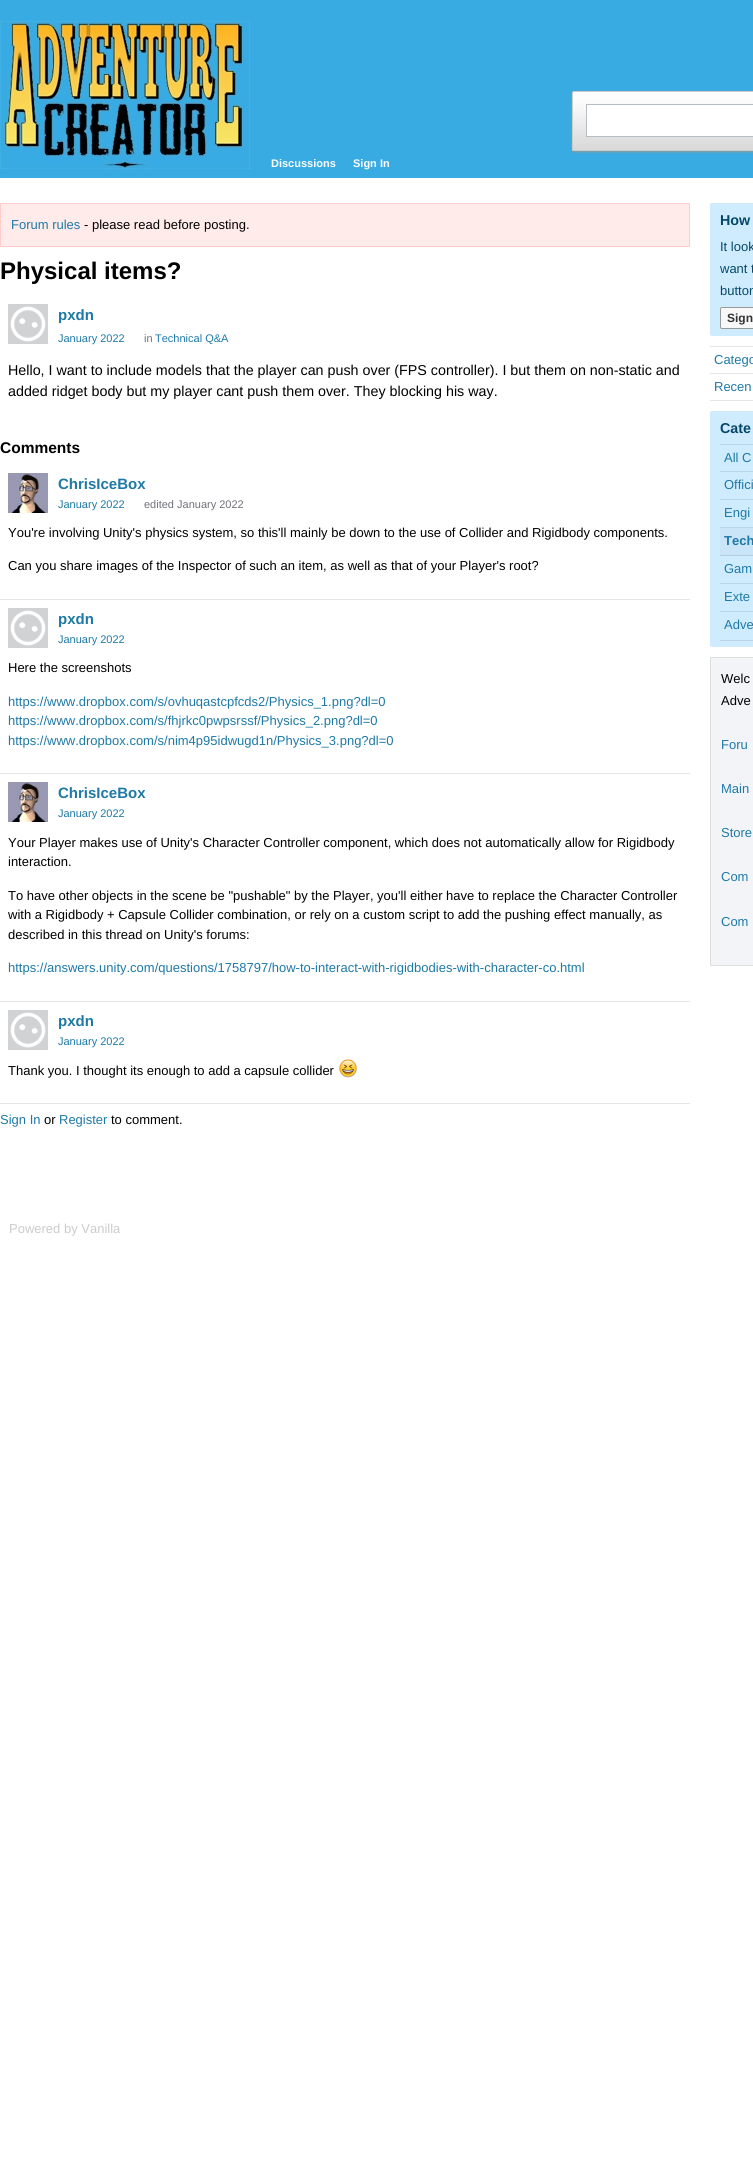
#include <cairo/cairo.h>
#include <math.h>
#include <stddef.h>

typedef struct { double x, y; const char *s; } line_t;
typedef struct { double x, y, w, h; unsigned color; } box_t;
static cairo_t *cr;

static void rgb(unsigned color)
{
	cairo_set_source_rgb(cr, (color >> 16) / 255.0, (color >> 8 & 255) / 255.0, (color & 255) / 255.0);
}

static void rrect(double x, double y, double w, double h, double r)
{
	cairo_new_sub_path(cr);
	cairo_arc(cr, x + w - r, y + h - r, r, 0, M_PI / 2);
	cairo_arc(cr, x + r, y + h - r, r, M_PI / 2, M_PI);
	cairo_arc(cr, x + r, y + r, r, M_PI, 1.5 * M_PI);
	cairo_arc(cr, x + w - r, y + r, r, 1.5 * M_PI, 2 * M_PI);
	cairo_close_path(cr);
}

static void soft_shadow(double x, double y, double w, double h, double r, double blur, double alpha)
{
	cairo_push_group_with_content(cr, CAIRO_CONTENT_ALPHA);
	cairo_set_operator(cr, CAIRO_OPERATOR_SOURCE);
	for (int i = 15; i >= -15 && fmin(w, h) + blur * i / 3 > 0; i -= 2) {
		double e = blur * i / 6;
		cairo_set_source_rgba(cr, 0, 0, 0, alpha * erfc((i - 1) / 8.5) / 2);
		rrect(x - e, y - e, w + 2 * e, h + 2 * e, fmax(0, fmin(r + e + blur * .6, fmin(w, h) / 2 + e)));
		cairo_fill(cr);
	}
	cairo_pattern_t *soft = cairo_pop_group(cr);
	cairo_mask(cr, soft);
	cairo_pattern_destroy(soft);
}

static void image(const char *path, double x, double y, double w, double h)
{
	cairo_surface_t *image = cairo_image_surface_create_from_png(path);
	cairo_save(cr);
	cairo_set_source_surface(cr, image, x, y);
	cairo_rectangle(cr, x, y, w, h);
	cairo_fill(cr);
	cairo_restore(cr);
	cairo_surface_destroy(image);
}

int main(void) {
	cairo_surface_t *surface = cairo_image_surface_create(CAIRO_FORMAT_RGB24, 753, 2159);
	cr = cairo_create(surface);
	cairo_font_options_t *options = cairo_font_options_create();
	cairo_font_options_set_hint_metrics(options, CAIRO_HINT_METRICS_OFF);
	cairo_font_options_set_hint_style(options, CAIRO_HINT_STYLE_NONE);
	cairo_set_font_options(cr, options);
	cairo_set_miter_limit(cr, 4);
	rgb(0xffffff);
	cairo_paint(cr);
	rgb(0x38abe3);
	cairo_rectangle(cr, 0, 0, 753, 178);
	cairo_fill(cr);
	image("img/1.png", 0, 21, 250, 148);
	rgb(0x999999);
	soft_shadow(572, 92, 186, 60, 2, 1, 1);
	image("img/2.png", 572, 92, 181, 59);
	rrect(572.5, 91.5, 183, 59, 1.5);
	rgb(0xcccccc);
	cairo_set_line_width(cr, 1);
	cairo_stroke(cr);
	rgb(0xffffff);
	cairo_rectangle(cr, 586.5, 104.5, 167, 32);
	cairo_fill_preserve(cr);
	rgb(0xb6bec5);
	cairo_stroke(cr);
	rgb(0xffebe9);
	rrect(0.5, 203.5, 689, 43, 0.5);
	cairo_fill_preserve(cr);
	rgb(0xffccc9);
	cairo_stroke(cr);
	image("img/3.png", 8, 304, 40, 40);
	rgb(0xe6e6e6);
	cairo_rectangle(cr, 0, 599, 690, 1);
	cairo_fill(cr);
	image("img/4.png", 8, 473, 40, 40);
	cairo_rectangle(cr, 0, 773, 690, 1);
	cairo_fill(cr);
	image("img/3.png", 8, 608, 40, 40);
	cairo_rectangle(cr, 0, 1001, 690, 1);
	cairo_fill(cr);
	image("img/4.png", 8, 782, 40, 40);
	cairo_rectangle(cr, 0, 1103, 690, 1);
	cairo_fill(cr);
	image("img/3.png", 8, 1010, 40, 40);
	image("img/5.png", 339, 1059, 18, 19);
	rgb(0xcfecff);
	rrect(710, 203, 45, 133, 2);
	cairo_fill(cr);
	rgb(0xf8f8f8);
	rrect(720.5, 307.5, 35, 21, 1.5);
	cairo_fill_preserve(cr);
	rgb(0x999999);
	cairo_stroke(cr);
	{
		static const box_t items[] = {
			{710, 346, 43, 1, 0xe6e6e6},
			{710, 373, 43, 1, 0xe6e6e6},
			{710, 400, 43, 1, 0xe6e6e6},
		};
		for (size_t i = 0; i < sizeof items / sizeof *items; i++) {
			rgb(items[i].color);
			cairo_rectangle(cr, items[i].x, items[i].y, items[i].w, items[i].h);
			cairo_fill(cr);
		}
	}
	rgb(0xcfecff);
	rrect(710, 411, 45, 236, 2);
	cairo_fill(cr);
	{
		static const box_t items[] = {
			{720, 444, 33, 1, 0xbad4e6},
			{720, 471, 33, 1, 0xbad4e6},
			{720, 499, 33, 1, 0xbad4e6},
			{720, 527, 33, 1, 0xbad4e6},
			{720, 528, 33, 27, 0xc9e5f7},
			{720, 555, 33, 1, 0xb5cede},
			{720, 583, 33, 1, 0xbad4e6},
			{720, 611, 33, 1, 0xbad4e6},
			{720, 640, 33, 1, 0xbad4e6},
		};
		for (size_t i = 0; i < sizeof items / sizeof *items; i++) {
			rgb(items[i].color);
			cairo_rectangle(cr, items[i].x, items[i].y, items[i].w, items[i].h);
			cairo_fill(cr);
		}
	}
	rgb(0xf3f4f8);
	rrect(710.5, 657.5, 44, 308, 0.5);
	cairo_fill_preserve(cr);
	rgb(0xdddddd);
	cairo_stroke(cr);
	cairo_select_font_face(cr, "Liberation Sans", CAIRO_FONT_SLANT_NORMAL, CAIRO_FONT_WEIGHT_BOLD);
	cairo_set_font_size(cr, 11);
	rgb(0xffffff);
	cairo_move_to(cr, 271, 167);
	cairo_show_text(cr, "Discussions");
	cairo_move_to(cr, 353, 167);
	cairo_show_text(cr, "Sign In");
	cairo_select_font_face(cr, "Liberation Sans", CAIRO_FONT_SLANT_NORMAL, CAIRO_FONT_WEIGHT_NORMAL);
	cairo_set_font_size(cr, 13);
	rgb(0x1e79a7);
	cairo_move_to(cr, 11, 229);
	cairo_show_text(cr, "Forum rules");
	rgb(0x000000);
	cairo_move_to(cr, 84, 229);
	cairo_show_text(cr, "- please read before posting.");
	cairo_select_font_face(cr, "Liberation Sans", CAIRO_FONT_SLANT_NORMAL, CAIRO_FONT_WEIGHT_BOLD);
	cairo_set_font_size(cr, 24);
	cairo_move_to(cr, 0, 279);
	cairo_show_text(cr, "Physical items?");
	cairo_set_font_size(cr, 15);
	rgb(0x1e79a7);
	cairo_move_to(cr, 58, 320);
	cairo_show_text(cr, "pxdn");
	cairo_select_font_face(cr, "Liberation Sans", CAIRO_FONT_SLANT_NORMAL, CAIRO_FONT_WEIGHT_NORMAL);
	cairo_set_font_size(cr, 11);
	cairo_move_to(cr, 58, 342);
	cairo_show_text(cr, "January 2022");
	rgb(0x70727c);
	cairo_move_to(cr, 144, 342);
	cairo_show_text(cr, "in");
	rgb(0x1e79a7);
	cairo_move_to(cr, 155, 342);
	cairo_show_text(cr, "Technical Q&A");
	cairo_set_font_size(cr, 14.3);
	rgb(0x000000);
	cairo_move_to(cr, 8, 375);
	cairo_show_text(cr, "Hello, I want to include models that the player can push over (FPS controller). I but them on non-static and");
	cairo_move_to(cr, 8, 396);
	cairo_show_text(cr, "added ridget body but my player cant push them over. They blocking his way.");
	cairo_select_font_face(cr, "Liberation Sans", CAIRO_FONT_SLANT_NORMAL, CAIRO_FONT_WEIGHT_BOLD);
	cairo_set_font_size(cr, 15.5);
	cairo_move_to(cr, 0, 453);
	cairo_show_text(cr, "Comments");
	cairo_set_font_size(cr, 15);
	rgb(0x1e79a7);
	cairo_move_to(cr, 58, 489);
	cairo_show_text(cr, "ChrisIceBox");
	cairo_select_font_face(cr, "Liberation Sans", CAIRO_FONT_SLANT_NORMAL, CAIRO_FONT_WEIGHT_NORMAL);
	cairo_set_font_size(cr, 11);
	cairo_move_to(cr, 58, 508);
	cairo_show_text(cr, "January 2022");
	rgb(0x70727c);
	cairo_move_to(cr, 144, 508);
	cairo_show_text(cr, "edited January 2022");
	cairo_set_font_size(cr, 13);
	rgb(0x000000);
	cairo_move_to(cr, 8, 537);
	cairo_show_text(cr, "You're involving Unity's physics system, so this'll mainly be down to the use of Collider and Rigidbody components.");
	cairo_move_to(cr, 8, 570);
	cairo_show_text(cr, "Can you share images of the Inspector of such an item, as well as that of your Player's root?");
	cairo_select_font_face(cr, "Liberation Sans", CAIRO_FONT_SLANT_NORMAL, CAIRO_FONT_WEIGHT_BOLD);
	cairo_set_font_size(cr, 15);
	rgb(0x1e79a7);
	cairo_move_to(cr, 58, 624);
	cairo_show_text(cr, "pxdn");
	cairo_select_font_face(cr, "Liberation Sans", CAIRO_FONT_SLANT_NORMAL, CAIRO_FONT_WEIGHT_NORMAL);
	cairo_set_font_size(cr, 11);
	cairo_move_to(cr, 58, 643);
	cairo_show_text(cr, "January 2022");
	cairo_set_font_size(cr, 13);
	rgb(0x000000);
	cairo_move_to(cr, 8, 672);
	cairo_show_text(cr, "Here the screenshots");
	rgb(0x1e79a7);
	{
		static const line_t items[] = {
			{8, 706, "https://www.dropbox.com/s/ovhuqastcpfcds2/Physics_1.png?dl=0"},
			{8, 725, "https://www.dropbox.com/s/fhjrkc0pwpsrssf/Physics_2.png?dl=0"},
			{8, 745, "https://www.dropbox.com/s/nim4p95idwugd1n/Physics_3.png?dl=0"},
		};
		for (size_t i = 0; i < sizeof items / sizeof *items; i++) {
			cairo_move_to(cr, items[i].x, items[i].y);
			cairo_show_text(cr, items[i].s);
		}
	}
	cairo_select_font_face(cr, "Liberation Sans", CAIRO_FONT_SLANT_NORMAL, CAIRO_FONT_WEIGHT_BOLD);
	cairo_set_font_size(cr, 15);
	cairo_move_to(cr, 58, 798);
	cairo_show_text(cr, "ChrisIceBox");
	cairo_select_font_face(cr, "Liberation Sans", CAIRO_FONT_SLANT_NORMAL, CAIRO_FONT_WEIGHT_NORMAL);
	cairo_set_font_size(cr, 11);
	cairo_move_to(cr, 58, 817);
	cairo_show_text(cr, "January 2022");
	cairo_set_font_size(cr, 13);
	rgb(0x000000);
	{
		static const line_t items[] = {
			{8, 847, "Your Player makes use of Unity's Character Controller component, which does not automatically allow for Rigidbody"},
			{8, 866, "interaction."},
			{8, 900, "To have other objects in the scene be \"pushable\" by the Player, you'll either have to replace the Character Controller"},
			{8, 919, "with a Rigidbody + Capsule Collider combination, or rely on a custom script to add the pushing effect manually, as"},
			{8, 939, "described in this thread on Unity's forums:"},
		};
		for (size_t i = 0; i < sizeof items / sizeof *items; i++) {
			cairo_move_to(cr, items[i].x, items[i].y);
			cairo_show_text(cr, items[i].s);
		}
	}
	rgb(0x1e79a7);
	cairo_move_to(cr, 8, 972);
	cairo_show_text(cr, "https://answers.unity.com/questions/1758797/how-to-interact-with-rigidbodies-with-character-co.html");
	cairo_select_font_face(cr, "Liberation Sans", CAIRO_FONT_SLANT_NORMAL, CAIRO_FONT_WEIGHT_BOLD);
	cairo_set_font_size(cr, 15);
	cairo_move_to(cr, 58, 1026);
	cairo_show_text(cr, "pxdn");
	cairo_select_font_face(cr, "Liberation Sans", CAIRO_FONT_SLANT_NORMAL, CAIRO_FONT_WEIGHT_NORMAL);
	cairo_set_font_size(cr, 11);
	cairo_move_to(cr, 58, 1045);
	cairo_show_text(cr, "January 2022");
	cairo_set_font_size(cr, 13);
	rgb(0x000000);
	cairo_move_to(cr, 8, 1075);
	cairo_show_text(cr, "Thank you. I thought its enough to add a capsule collider");
	rgb(0x1e79a7);
	cairo_move_to(cr, 0, 1124);
	cairo_show_text(cr, "Sign In");
	rgb(0x000000);
	cairo_move_to(cr, 44, 1124);
	cairo_show_text(cr, "or");
	rgb(0x1e79a7);
	cairo_move_to(cr, 59, 1124);
	cairo_show_text(cr, "Register");
	rgb(0x000000);
	cairo_move_to(cr, 111, 1124);
	cairo_show_text(cr, "to comment.");
	cairo_select_font_face(cr, "Liberation Sans", CAIRO_FONT_SLANT_NORMAL, CAIRO_FONT_WEIGHT_BOLD);
	cairo_set_font_size(cr, 14.3);
	rgb(0x06486a);
	cairo_move_to(cr, 720, 225);
	cairo_show_text(cr, "How");
	cairo_select_font_face(cr, "Liberation Sans", CAIRO_FONT_SLANT_NORMAL, CAIRO_FONT_WEIGHT_NORMAL);
	cairo_set_font_size(cr, 13);
	{
		static const line_t items[] = {
			{720, 251, "It look"},
			{720, 273, "want t"},
			{720, 295, "button"},
		};
		for (size_t i = 0; i < sizeof items / sizeof *items; i++) {
			cairo_move_to(cr, items[i].x, items[i].y);
			cairo_show_text(cr, items[i].s);
		}
	}
	cairo_select_font_face(cr, "Liberation Sans", CAIRO_FONT_SLANT_NORMAL, CAIRO_FONT_WEIGHT_BOLD);
	cairo_set_font_size(cr, 12);
	rgb(0x333333);
	cairo_move_to(cr, 727, 322);
	cairo_show_text(cr, "Sign");
	cairo_select_font_face(cr, "Liberation Sans", CAIRO_FONT_SLANT_NORMAL, CAIRO_FONT_WEIGHT_NORMAL);
	cairo_set_font_size(cr, 13);
	rgb(0x1e79a7);
	cairo_move_to(cr, 714, 364);
	cairo_show_text(cr, "Catego");
	cairo_move_to(cr, 714, 391);
	cairo_show_text(cr, "Recen");
	cairo_select_font_face(cr, "Liberation Sans", CAIRO_FONT_SLANT_NORMAL, CAIRO_FONT_WEIGHT_BOLD);
	cairo_set_font_size(cr, 14.3);
	rgb(0x06486a);
	cairo_move_to(cr, 720, 433);
	cairo_show_text(cr, "Cate");
	cairo_select_font_face(cr, "Liberation Sans", CAIRO_FONT_SLANT_NORMAL, CAIRO_FONT_WEIGHT_NORMAL);
	cairo_set_font_size(cr, 13);
	rgb(0x1e79a7);
	{
		static const line_t items[] = {
			{724, 462, "All C"},
			{724, 489, "Offici"},
			{724, 517, "Engi"},
		};
		for (size_t i = 0; i < sizeof items / sizeof *items; i++) {
			cairo_move_to(cr, items[i].x, items[i].y);
			cairo_show_text(cr, items[i].s);
		}
	}
	cairo_select_font_face(cr, "Liberation Sans", CAIRO_FONT_SLANT_NORMAL, CAIRO_FONT_WEIGHT_BOLD);
	cairo_move_to(cr, 724, 545);
	cairo_show_text(cr, "Tech");
	cairo_select_font_face(cr, "Liberation Sans", CAIRO_FONT_SLANT_NORMAL, CAIRO_FONT_WEIGHT_NORMAL);
	{
		static const line_t items[] = {
			{724, 573, "Gam"},
			{724, 601, "Exte"},
			{724, 629, "Adve"},
		};
		for (size_t i = 0; i < sizeof items / sizeof *items; i++) {
			cairo_move_to(cr, items[i].x, items[i].y);
			cairo_show_text(cr, items[i].s);
		}
	}
	rgb(0x000000);
	cairo_move_to(cr, 721, 683);
	cairo_show_text(cr, "Welc");
	cairo_move_to(cr, 721, 705);
	cairo_show_text(cr, "Adve");
	rgb(0x1e79a7);
	{
		static const line_t items[] = {
			{721, 749, "Foru"},
			{721, 793, "Main"},
			{721, 837, "Store"},
			{721, 881, "Com"},
			{721, 926, "Com"},
		};
		for (size_t i = 0; i < sizeof items / sizeof *items; i++) {
			cairo_move_to(cr, items[i].x, items[i].y);
			cairo_show_text(cr, items[i].s);
		}
	}
	rgb(0xcccccc);
	cairo_move_to(cr, 9, 1233);
	cairo_show_text(cr, "Powered by Vanilla");
	cairo_surface_write_to_png(surface, "page.png");
	cairo_font_options_destroy(options);
	cairo_destroy(cr);
	cairo_surface_destroy(surface);
	return 0;
}
